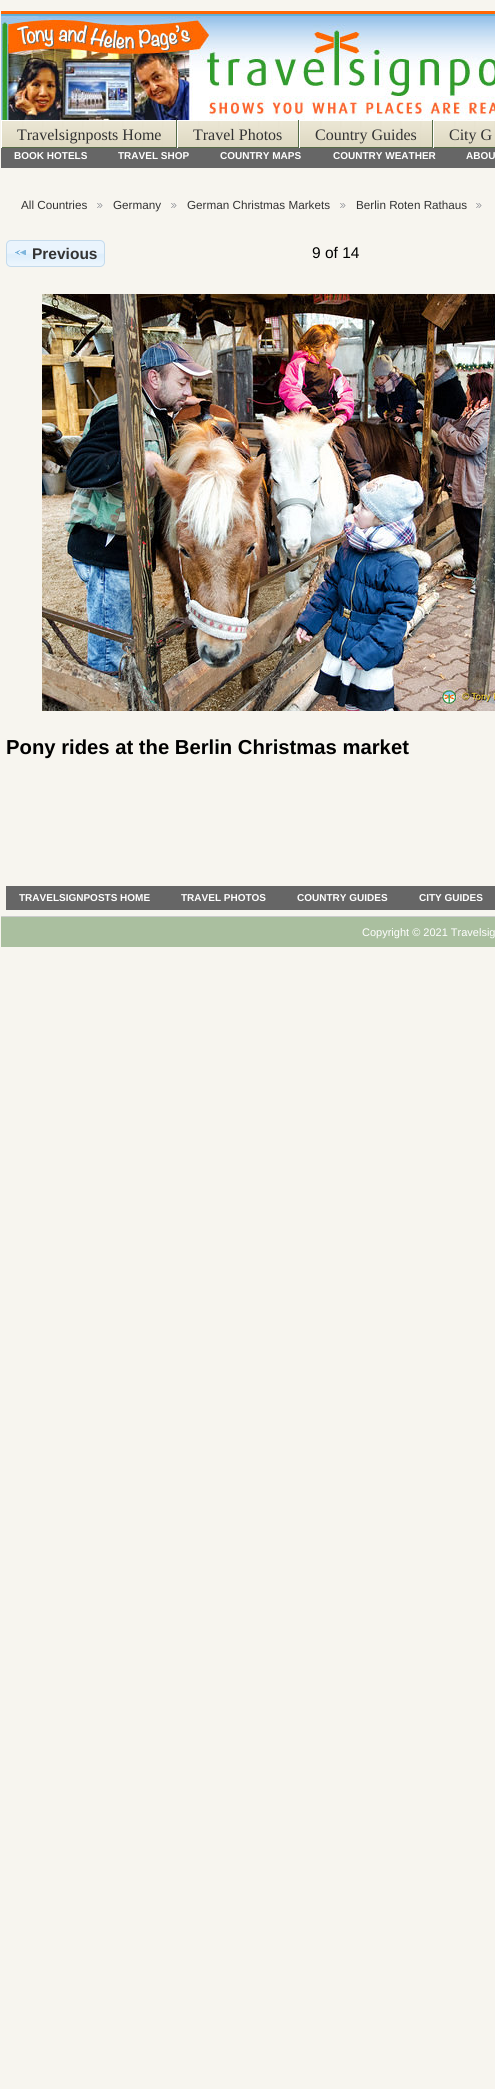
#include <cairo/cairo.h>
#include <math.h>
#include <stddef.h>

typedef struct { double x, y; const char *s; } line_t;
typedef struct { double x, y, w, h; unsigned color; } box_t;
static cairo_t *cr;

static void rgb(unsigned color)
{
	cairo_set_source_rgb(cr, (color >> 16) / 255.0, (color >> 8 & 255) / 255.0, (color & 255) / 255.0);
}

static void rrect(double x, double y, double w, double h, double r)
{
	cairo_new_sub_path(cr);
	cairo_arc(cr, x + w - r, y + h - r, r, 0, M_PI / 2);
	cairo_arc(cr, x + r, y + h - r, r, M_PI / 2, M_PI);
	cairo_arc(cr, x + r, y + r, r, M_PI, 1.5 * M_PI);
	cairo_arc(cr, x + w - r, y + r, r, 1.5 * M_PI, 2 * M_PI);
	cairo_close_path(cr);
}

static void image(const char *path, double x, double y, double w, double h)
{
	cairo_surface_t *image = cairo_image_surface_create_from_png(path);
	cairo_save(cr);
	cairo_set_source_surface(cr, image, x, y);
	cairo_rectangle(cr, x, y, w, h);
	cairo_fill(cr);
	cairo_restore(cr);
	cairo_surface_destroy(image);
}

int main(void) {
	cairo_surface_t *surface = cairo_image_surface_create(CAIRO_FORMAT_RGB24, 495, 2089);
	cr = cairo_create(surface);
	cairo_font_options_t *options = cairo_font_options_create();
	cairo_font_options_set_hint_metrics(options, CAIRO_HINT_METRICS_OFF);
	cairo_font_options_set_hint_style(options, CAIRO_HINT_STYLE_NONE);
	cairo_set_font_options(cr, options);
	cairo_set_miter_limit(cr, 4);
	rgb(0xf7f5ef);
	cairo_paint(cr);
	image("img/1.png", 1, 11, 494, 5);
	image("img/2.png", 1, 16, 494, 104);
	image("img/3.png", 2, 121, 174, 26);
	image("img/4.png", 178, 121, 120, 26);
	image("img/5.png", 300, 121, 132, 26);
	image("img/6.png", 434, 121, 61, 26);
	{
		static const box_t items[] = {
			{1, 120, 494, 1, 0xffffff},
			{176, 120, 1, 28, 0x556b46},
			{1, 147, 176, 1, 0x556b46},
			{1, 120, 1, 28, 0xffffff},
			{298, 120, 1, 28, 0x556b46},
			{177, 147, 122, 1, 0x556b46},
			{177, 120, 1, 28, 0xffffff},
			{432, 120, 1, 28, 0x556b46},
			{299, 147, 196, 1, 0x556b46},
			{299, 120, 1, 28, 0xffffff},
			{433, 120, 1, 28, 0xffffff},
			{1, 148, 494, 20, 0x666666},
		};
		for (size_t i = 0; i < sizeof items / sizeof *items; i++) {
			rgb(items[i].color);
			cairo_rectangle(cr, items[i].x, items[i].y, items[i].w, items[i].h);
			cairo_fill(cr);
		}
	}
	image("img/7.png", 97, 203, 6, 5);
	image("img/7.png", 171, 203, 6, 5);
	image("img/7.png", 340, 203, 6, 5);
	image("img/7.png", 476, 203, 6, 5);
	image("img/8.png", 6, 240, 99, 27);
	rrect(6.5, 240.5, 98, 26, 4.5);
	rgb(0xc5dbec);
	cairo_set_line_width(cr, 1);
	cairo_stroke(cr);
	image("img/9.png", 15, 250, 11, 5);
	image("img/10.png", 42, 294, 453, 417);
	{
		static const box_t items[] = {
			{1, 916, 494, 1, 0xcccccc},
			{6, 886, 489, 24, 0x666666},
			{1, 917, 494, 30, 0xaabf9f},
		};
		for (size_t i = 0; i < sizeof items / sizeof *items; i++) {
			rgb(items[i].color);
			cairo_rectangle(cr, items[i].x, items[i].y, items[i].w, items[i].h);
			cairo_fill(cr);
		}
	}
	cairo_select_font_face(cr, "Liberation Serif", CAIRO_FONT_SLANT_NORMAL, CAIRO_FONT_WEIGHT_NORMAL);
	cairo_set_font_size(cr, 16);
	rgb(0x333333);
	{
		static const line_t items[] = {
			{17, 140, "Travelsignposts Home"},
			{193, 140, "Travel Photos"},
			{315, 140, "Country Guides"},
			{449, 140, "City G"},
		};
		for (size_t i = 0; i < sizeof items / sizeof *items; i++) {
			cairo_move_to(cr, items[i].x, items[i].y);
			cairo_show_text(cr, items[i].s);
		}
	}
	cairo_select_font_face(cr, "Liberation Sans", CAIRO_FONT_SLANT_NORMAL, CAIRO_FONT_WEIGHT_BOLD);
	cairo_set_font_size(cr, 10);
	rgb(0xffffff);
	{
		static const line_t items[] = {
			{14, 159, "BOOK HOTELS"},
			{118, 159, "TRAVEL SHOP"},
			{220, 159, "COUNTRY MAPS"},
			{333, 159, "COUNTRY WEATHER"},
			{466, 159, "ABOU"},
		};
		for (size_t i = 0; i < sizeof items / sizeof *items; i++) {
			cairo_move_to(cr, items[i].x, items[i].y);
			cairo_show_text(cr, items[i].s);
		}
	}
	cairo_select_font_face(cr, "Liberation Sans", CAIRO_FONT_SLANT_NORMAL, CAIRO_FONT_WEIGHT_NORMAL);
	cairo_set_font_size(cr, 11.7);
	rgb(0x333333);
	{
		static const line_t items[] = {
			{21, 209, "All Countries"},
			{113, 209, "Germany"},
			{187, 209, "German Christmas Markets"},
			{356, 209, "Berlin Roten Rathaus"},
		};
		for (size_t i = 0; i < sizeof items / sizeof *items; i++) {
			cairo_move_to(cr, items[i].x, items[i].y);
			cairo_show_text(cr, items[i].s);
		}
	}
	cairo_select_font_face(cr, "Liberation Sans", CAIRO_FONT_SLANT_NORMAL, CAIRO_FONT_WEIGHT_BOLD);
	cairo_set_font_size(cr, 15.5);
	cairo_move_to(cr, 32, 259);
	cairo_show_text(cr, "Previous");
	cairo_select_font_face(cr, "Liberation Sans", CAIRO_FONT_SLANT_NORMAL, CAIRO_FONT_WEIGHT_NORMAL);
	rgb(0x000000);
	cairo_move_to(cr, 312, 258);
	cairo_show_text(cr, "9 of 14");
	cairo_select_font_face(cr, "Liberation Sans", CAIRO_FONT_SLANT_NORMAL, CAIRO_FONT_WEIGHT_BOLD);
	cairo_set_font_size(cr, 20.25);
	cairo_move_to(cr, 6, 754);
	cairo_show_text(cr, "Pony rides at the Berlin Christmas market");
	cairo_set_font_size(cr, 10);
	rgb(0xffffff);
	{
		static const line_t items[] = {
			{19, 901, "TRAVELSIGNPOSTS HOME"},
			{181, 901, "TRAVEL PHOTOS"},
			{297, 901, "COUNTRY GUIDES"},
			{419, 901, "CITY GUIDES"},
		};
		for (size_t i = 0; i < sizeof items / sizeof *items; i++) {
			cairo_move_to(cr, items[i].x, items[i].y);
			cairo_show_text(cr, items[i].s);
		}
	}
	cairo_select_font_face(cr, "Liberation Sans", CAIRO_FONT_SLANT_NORMAL, CAIRO_FONT_WEIGHT_NORMAL);
	cairo_set_font_size(cr, 11);
	cairo_move_to(cr, 362, 936);
	cairo_show_text(cr, "Copyright © 2021 Travelsig");
	cairo_surface_write_to_png(surface, "page.png");
	cairo_font_options_destroy(options);
	cairo_destroy(cr);
	cairo_surface_destroy(surface);
	return 0;
}
